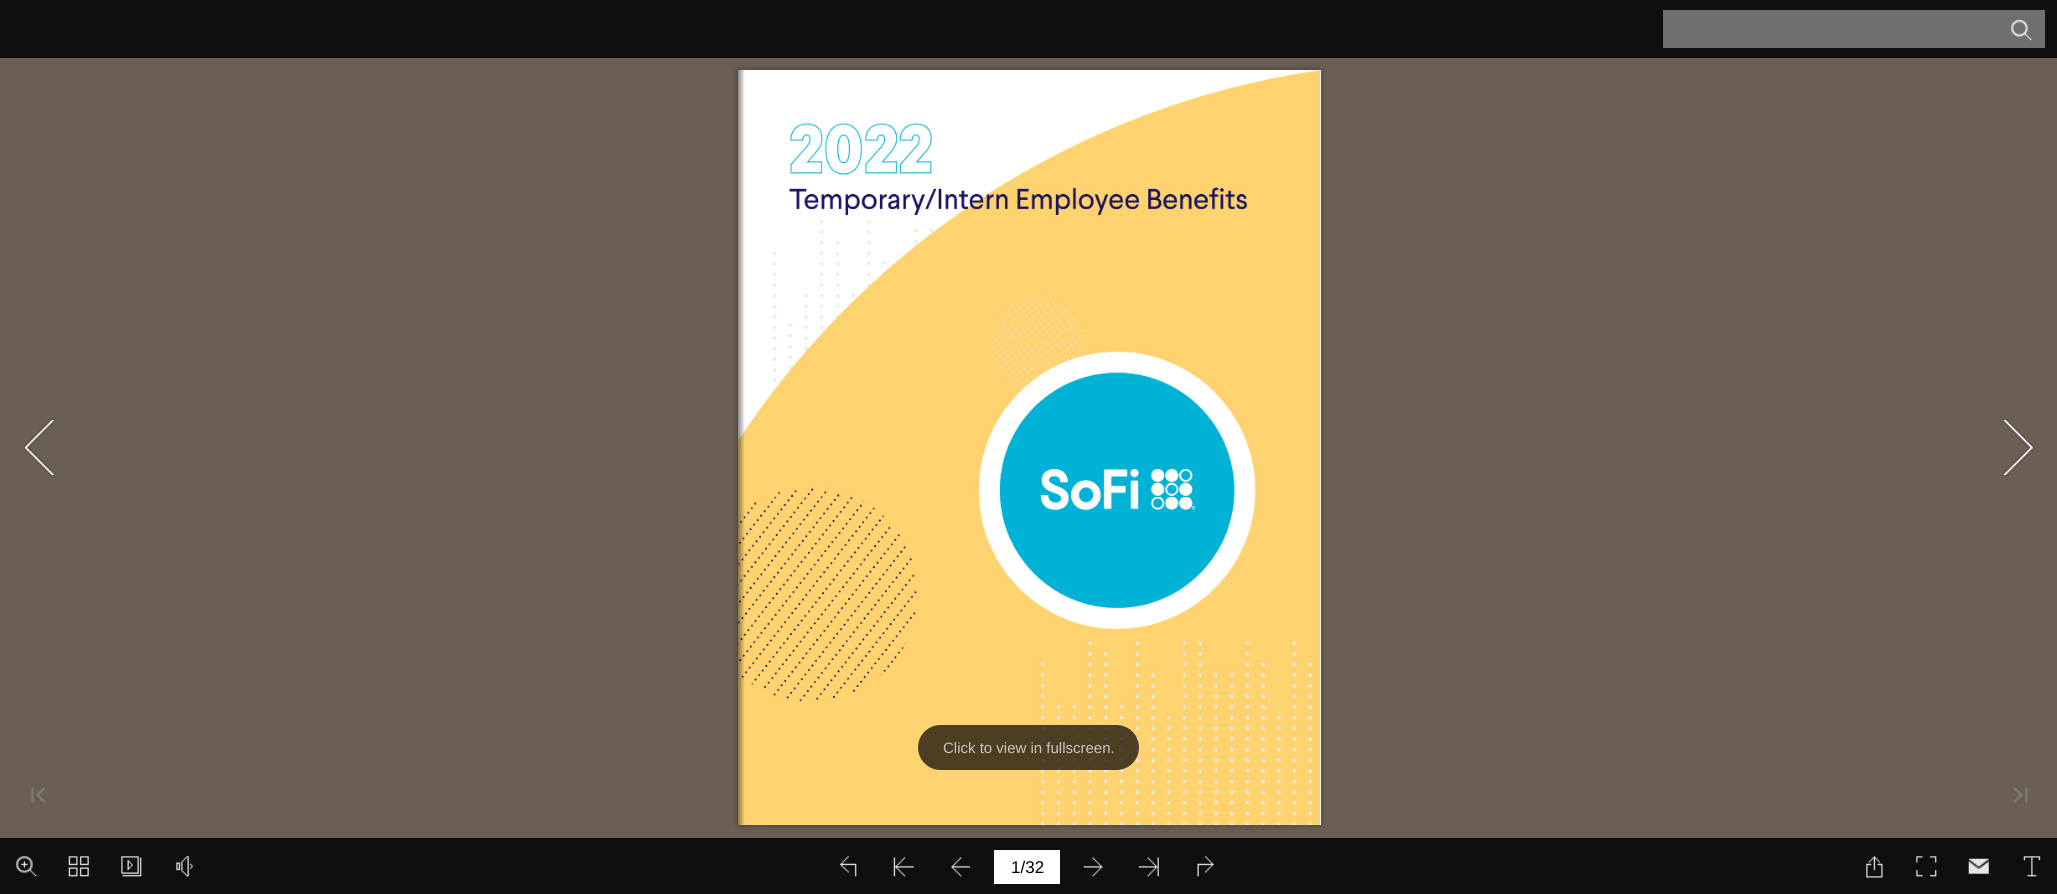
#include <cairo/cairo.h>
#include <math.h>
#include <stddef.h>

static cairo_t *cr;

static void rgb(unsigned color)
{
	cairo_set_source_rgb(cr, (color >> 16) / 255.0, (color >> 8 & 255) / 255.0, (color & 255) / 255.0);
}

static void rrect(double x, double y, double w, double h, double r)
{
	cairo_new_sub_path(cr);
	cairo_arc(cr, x + w - r, y + h - r, r, 0, M_PI / 2);
	cairo_arc(cr, x + r, y + h - r, r, M_PI / 2, M_PI);
	cairo_arc(cr, x + r, y + r, r, M_PI, 1.5 * M_PI);
	cairo_arc(cr, x + w - r, y + r, r, 1.5 * M_PI, 2 * M_PI);
	cairo_close_path(cr);
}

static void soft_shadow(double x, double y, double w, double h, double r, double blur, double alpha)
{
	cairo_push_group_with_content(cr, CAIRO_CONTENT_ALPHA);
	cairo_set_operator(cr, CAIRO_OPERATOR_SOURCE);
	for (int i = 15; i >= -15 && fmin(w, h) + blur * i / 3 > 0; i -= 2) {
		double e = blur * i / 6;
		cairo_set_source_rgba(cr, 0, 0, 0, alpha * erfc((i - 1) / 8.5) / 2);
		rrect(x - e, y - e, w + 2 * e, h + 2 * e, fmax(0, fmin(r + e + blur * .6, fmin(w, h) / 2 + e)));
		cairo_fill(cr);
	}
	cairo_pattern_t *soft = cairo_pop_group(cr);
	cairo_mask(cr, soft);
	cairo_pattern_destroy(soft);
}

static void image(const char *path, double x, double y, double w, double h)
{
	cairo_surface_t *image = cairo_image_surface_create_from_png(path);
	cairo_save(cr);
	cairo_set_source_surface(cr, image, x, y);
	cairo_rectangle(cr, x, y, w, h);
	cairo_fill(cr);
	cairo_restore(cr);
	cairo_surface_destroy(image);
}

int main(void) {
	cairo_surface_t *surface = cairo_image_surface_create(CAIRO_FORMAT_RGB24, 2057, 894);
	cr = cairo_create(surface);
	cairo_font_options_t *options = cairo_font_options_create();
	cairo_font_options_set_hint_metrics(options, CAIRO_HINT_METRICS_OFF);
	cairo_font_options_set_hint_style(options, CAIRO_HINT_STYLE_NONE);
	cairo_set_font_options(cr, options);
	cairo_set_miter_limit(cr, 4);
	cairo_pattern_t *gradient;
	rgb(0x6b5e53);
	cairo_paint(cr);
	rgb(0x110e0f);
	cairo_rectangle(cr, 0, 0, 2057, 58);
	cairo_fill(cr);
	rgb(0x716e6f);
	cairo_rectangle(cr, 1663, 10, 382, 38);
	cairo_fill(cr);
	image("img/1.png", 2011, 19, 21, 22);
	image("img/2.png", 23, 418, 32, 59);
	image("img/3.png", 2002, 418, 32, 59);
	rgb(0x282828);
	soft_shadow(738, 70, 582, 755, 0, 3, 0.7);
	image("img/5.png", 738, 824, 582, 1);
	image("img/6.png", 738, 824, 28, 1);
	image("img/5.png", 738, 824, 582, 1);
	image("img/7.png", 1219, 824, 101, 1);
	image("img/4.png", 738, 70, 582, 755);
	gradient = cairo_pattern_create_linear(738, 448, 745, 448);
	cairo_pattern_add_color_stop_rgba(gradient, 0, 0.078, 0.078, 0.078, 0.5);
	cairo_pattern_add_color_stop_rgba(gradient, 1, 0.078, 0.078, 0.078, 0);
	cairo_set_source(cr, gradient);
	cairo_pattern_destroy(gradient);
	cairo_rectangle(cr, 738, 70, 7, 755);
	cairo_fill(cr);
	rgb(0xf3f3f3);
	cairo_rectangle(cr, 1320, 70, 1, 755);
	cairo_fill(cr);
	cairo_set_source_rgba(cr, 0, 0, 0, 0.7);
	rrect(918, 725, 221, 45, 22.5);
	cairo_fill(cr);
	image("img/8.png", 31, 787, 14, 16);
	image("img/9.png", 2013, 787, 15, 16);
	rgb(0x110e0f);
	cairo_rectangle(cr, 0, 838, 2057, 56);
	cairo_fill(cr);
	image("img/10.png", 16, 856, 21, 21);
	image("img/11.png", 68, 856, 21, 21);
	image("img/12.png", 121, 856, 21, 21);
	image("img/13.png", 176, 856, 17, 21);
	image("img/14.png", 839, 856, 18, 21);
	image("img/15.png", 893, 857, 21, 20);
	image("img/16.png", 951, 857, 20, 20);
	rgb(0xffffff);
	cairo_rectangle(cr, 994, 850, 66, 34);
	cairo_fill(cr);
	image("img/17.png", 1083, 857, 20, 20);
	image("img/18.png", 1138, 857, 21, 20);
	image("img/19.png", 1197, 856, 17, 21);
	image("img/20.png", 1866, 856, 17, 22);
	image("img/21.png", 1916, 856, 21, 21);
	image("img/22.png", 1968, 858, 21, 16);
	image("img/23.png", 2023, 856, 18, 21);
	cairo_select_font_face(cr, "Liberation Sans", CAIRO_FONT_SLANT_NORMAL, CAIRO_FONT_WEIGHT_NORMAL);
	cairo_set_font_size(cr, 15);
	rgb(0xc9c6bd);
	cairo_move_to(cr, 943, 753);
	cairo_show_text(cr, "Click to view in fullscreen.");
	cairo_set_font_size(cr, 17);
	rgb(0x000000);
	cairo_move_to(cr, 1011, 873);
	cairo_show_text(cr, "1/32");
	cairo_surface_write_to_png(surface, "page.png");
	cairo_font_options_destroy(options);
	cairo_destroy(cr);
	cairo_surface_destroy(surface);
	return 0;
}
